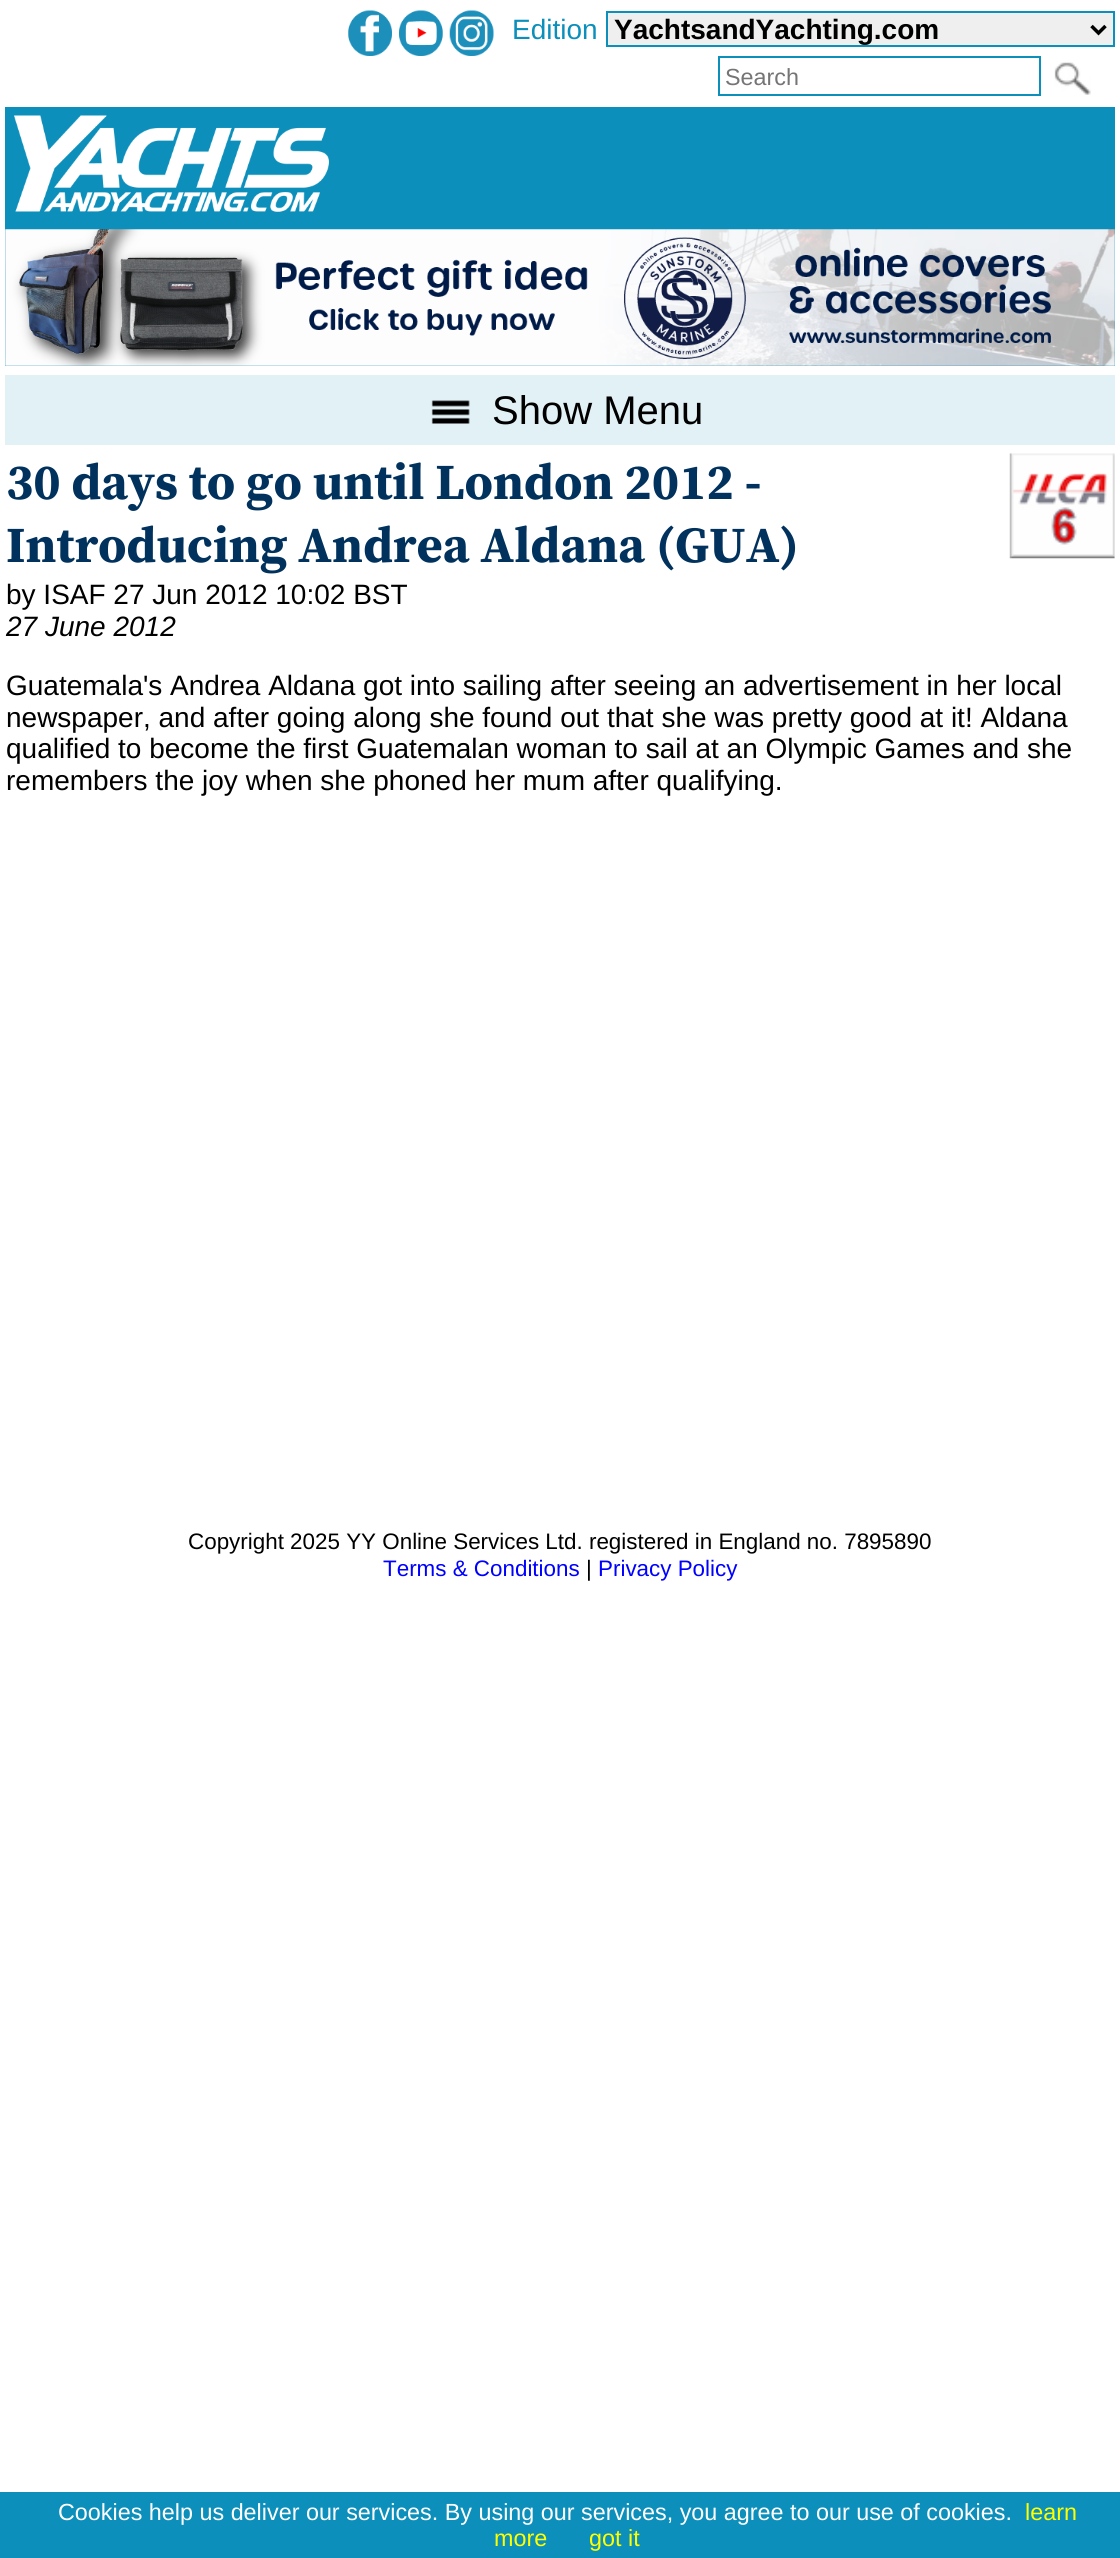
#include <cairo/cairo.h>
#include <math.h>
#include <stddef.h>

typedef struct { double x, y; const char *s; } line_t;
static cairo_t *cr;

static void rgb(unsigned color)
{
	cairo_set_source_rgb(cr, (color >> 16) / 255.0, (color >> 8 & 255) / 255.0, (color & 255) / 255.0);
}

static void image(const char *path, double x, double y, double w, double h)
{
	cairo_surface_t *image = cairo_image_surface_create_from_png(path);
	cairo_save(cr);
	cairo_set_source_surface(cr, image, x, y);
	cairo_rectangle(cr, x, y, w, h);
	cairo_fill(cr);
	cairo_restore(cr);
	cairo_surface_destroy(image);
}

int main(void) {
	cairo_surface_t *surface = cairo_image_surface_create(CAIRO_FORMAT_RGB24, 1120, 2558);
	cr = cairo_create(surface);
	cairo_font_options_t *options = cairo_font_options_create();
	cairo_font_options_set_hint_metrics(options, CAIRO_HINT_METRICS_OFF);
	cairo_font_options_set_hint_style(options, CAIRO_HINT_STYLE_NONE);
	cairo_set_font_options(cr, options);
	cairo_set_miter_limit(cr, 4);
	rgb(0xffffff);
	cairo_paint(cr);
	image("img/1.png", 348, 10, 44, 46);
	image("img/2.png", 399, 10, 44, 46);
	image("img/3.png", 449, 10, 45, 46);
	rgb(0xefefef);
	cairo_rectangle(cr, 607, 12, 507, 34);
	cairo_fill_preserve(cr);
	rgb(0x0c8fbb);
	cairo_stroke(cr);
	cairo_new_path(cr);
	cairo_move_to(cr, 1091.5, 26);
	cairo_line_to(cr, 1098.5, 33);
	cairo_line_to(cr, 1105.5, 26);
	rgb(0x000000);
	cairo_set_line_width(cr, 3.5);
	cairo_stroke(cr);
	cairo_rectangle(cr, 719, 57, 321, 38);
	rgb(0x0c8fbb);
	cairo_set_line_width(cr, 2);
	cairo_stroke(cr);
	image("img/4.png", 1054, 62, 37, 33);
	cairo_rectangle(cr, 5, 107, 1110, 259);
	cairo_fill(cr);
	image("img/5.png", 14, 115, 315, 97);
	image("img/6.png", 5, 229, 1110, 137);
	rgb(0xe2f1f6);
	cairo_rectangle(cr, 5, 375, 1110, 70);
	cairo_fill(cr);
	image("img/7.png", 431, 400, 39, 24);
	image("img/8.png", 1009, 453, 106, 106);
	rgb(0x0c8fbb);
	cairo_rectangle(cr, 0, 2492, 1120, 66);
	cairo_fill(cr);
	cairo_select_font_face(cr, "Liberation Sans", CAIRO_FONT_SLANT_NORMAL, CAIRO_FONT_WEIGHT_NORMAL);
	cairo_set_font_size(cr, 28);
	cairo_move_to(cr, 512, 39);
	cairo_show_text(cr, "Edition");
	cairo_select_font_face(cr, "Liberation Sans", CAIRO_FONT_SLANT_NORMAL, CAIRO_FONT_WEIGHT_BOLD);
	rgb(0x000000);
	cairo_move_to(cr, 614, 39);
	cairo_show_text(cr, "YachtsandYachting.com");
	cairo_select_font_face(cr, "Liberation Sans", CAIRO_FONT_SLANT_NORMAL, CAIRO_FONT_WEIGHT_NORMAL);
	cairo_set_font_size(cr, 23.35);
	rgb(0x757575);
	cairo_move_to(cr, 725, 85);
	cairo_show_text(cr, "Search");
	cairo_set_font_size(cr, 40);
	rgb(0x000000);
	cairo_move_to(cr, 492, 424);
	cairo_show_text(cr, "Show Menu");
	cairo_select_font_face(cr, "Source Serif Pro", CAIRO_FONT_SLANT_NORMAL, CAIRO_FONT_WEIGHT_BOLD);
	cairo_set_font_size(cr, 50.4);
	rgb(0x01325d);
	cairo_move_to(cr, 6, 499);
	cairo_show_text(cr, "30 days to go until London 2012 -");
	cairo_move_to(cr, 6, 562);
	cairo_show_text(cr, "Introducing Andrea Aldana (GUA)");
	cairo_select_font_face(cr, "Liberation Sans", CAIRO_FONT_SLANT_NORMAL, CAIRO_FONT_WEIGHT_NORMAL);
	cairo_set_font_size(cr, 28);
	rgb(0x000000);
	cairo_move_to(cr, 6, 604);
	cairo_show_text(cr, "by ISAF 27 Jun 2012 10:02 BST");
	cairo_select_font_face(cr, "Liberation Sans", CAIRO_FONT_SLANT_ITALIC, CAIRO_FONT_WEIGHT_NORMAL);
	cairo_move_to(cr, 6, 636);
	cairo_show_text(cr, "27 June 2012");
	cairo_select_font_face(cr, "Liberation Sans", CAIRO_FONT_SLANT_NORMAL, CAIRO_FONT_WEIGHT_NORMAL);
	{
		static const line_t items[] = {
			{6, 695, "Guatemala's Andrea Aldana got into sailing after seeing an advertisement in her local"},
			{6, 727, "newspaper, and after going along she found out that she was pretty good at it! Aldana"},
			{6, 758, "qualified to become the first Guatemalan woman to sail at an Olympic Games and she"},
			{6, 790, "remembers the joy when she phoned her mum after qualifying."},
		};
		for (size_t i = 0; i < sizeof items / sizeof *items; i++) {
			cairo_move_to(cr, items[i].x, items[i].y);
			cairo_show_text(cr, items[i].s);
		}
	}
	cairo_set_font_size(cr, 22.4);
	cairo_move_to(cr, 188, 1549);
	cairo_show_text(cr, "Copyright 2025 YY Online Services Ltd. registered in England no. 7895890");
	rgb(0x0000ff);
	cairo_move_to(cr, 383, 1576);
	cairo_show_text(cr, "Terms & Conditions");
	rgb(0x000000);
	cairo_move_to(cr, 586, 1576);
	cairo_show_text(cr, "|");
	rgb(0x0000ff);
	cairo_move_to(cr, 598, 1576);
	cairo_show_text(cr, "Privacy Policy");
	cairo_set_font_size(cr, 23.35);
	rgb(0xffffff);
	cairo_move_to(cr, 58, 2520);
	cairo_show_text(cr, "Cookies help us deliver our services. By using our services, you agree to our use of cookies.");
	rgb(0xffff00);
	{
		static const line_t items[] = {
			{1025, 2520, "learn"},
			{494, 2546, "more"},
			{589, 2546, "got it"},
		};
		for (size_t i = 0; i < sizeof items / sizeof *items; i++) {
			cairo_move_to(cr, items[i].x, items[i].y);
			cairo_show_text(cr, items[i].s);
		}
	}
	cairo_surface_write_to_png(surface, "page.png");
	cairo_font_options_destroy(options);
	cairo_destroy(cr);
	cairo_surface_destroy(surface);
	return 0;
}
